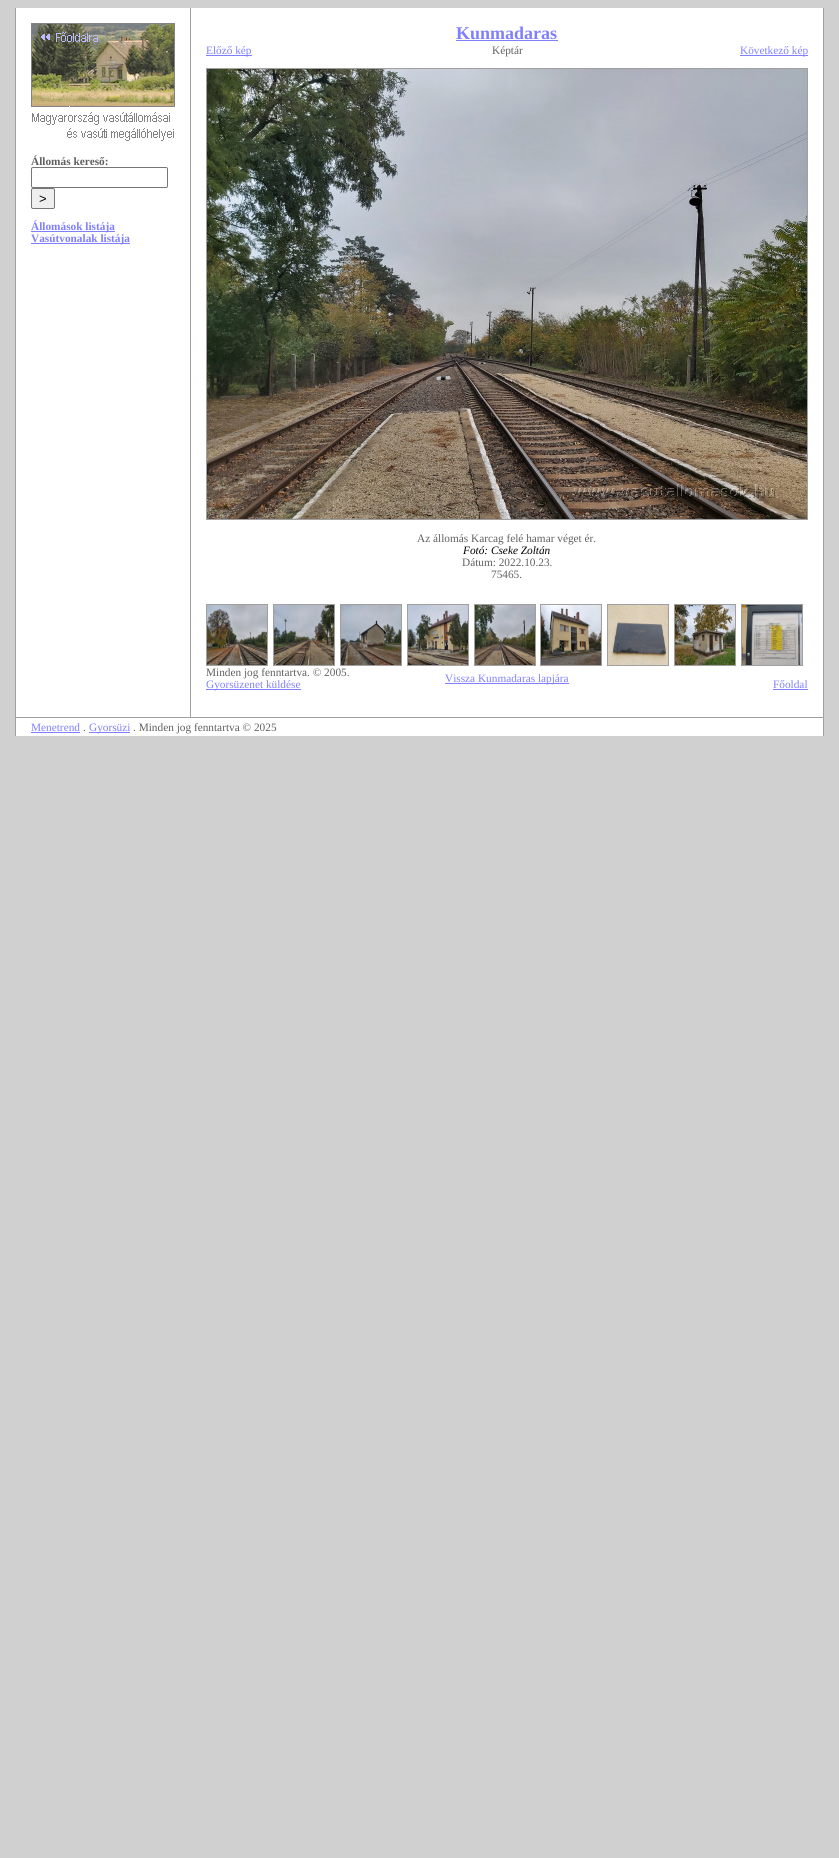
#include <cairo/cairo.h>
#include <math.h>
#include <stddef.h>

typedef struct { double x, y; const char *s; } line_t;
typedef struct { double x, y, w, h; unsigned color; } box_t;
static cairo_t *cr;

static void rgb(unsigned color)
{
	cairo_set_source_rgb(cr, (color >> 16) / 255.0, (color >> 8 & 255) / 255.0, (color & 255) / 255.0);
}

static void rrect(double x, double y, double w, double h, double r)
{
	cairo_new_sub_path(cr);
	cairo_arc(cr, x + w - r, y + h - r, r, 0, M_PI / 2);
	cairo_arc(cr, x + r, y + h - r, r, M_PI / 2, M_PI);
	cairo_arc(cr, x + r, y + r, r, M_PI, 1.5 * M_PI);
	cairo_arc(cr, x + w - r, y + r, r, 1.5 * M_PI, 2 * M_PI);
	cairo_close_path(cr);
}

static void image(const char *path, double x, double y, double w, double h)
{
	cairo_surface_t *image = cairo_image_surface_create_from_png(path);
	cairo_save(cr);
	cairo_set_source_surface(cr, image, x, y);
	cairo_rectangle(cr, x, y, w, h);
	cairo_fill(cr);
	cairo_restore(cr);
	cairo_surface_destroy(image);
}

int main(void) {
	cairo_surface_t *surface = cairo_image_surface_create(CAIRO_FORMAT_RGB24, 839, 1858);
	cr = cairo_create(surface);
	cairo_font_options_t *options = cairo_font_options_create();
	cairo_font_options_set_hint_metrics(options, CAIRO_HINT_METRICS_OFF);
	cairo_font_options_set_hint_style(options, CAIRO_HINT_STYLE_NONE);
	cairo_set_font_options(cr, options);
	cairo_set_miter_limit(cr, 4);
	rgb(0xd0d0d0);
	cairo_paint(cr);
	rgb(0xffffff);
	cairo_rectangle(cr, 16, 8, 807, 728);
	cairo_fill(cr);
	rgb(0xa0a0a0);
	cairo_rectangle(cr, 15, 8, 1, 709);
	cairo_fill(cr);
	image("img/1.png", 31, 23, 144, 118);
	rrect(31.5, 167.5, 136, 20, 1.5);
	rgb(0x767676);
	cairo_set_line_width(cr, 1);
	cairo_stroke(cr);
	rgb(0xefefef);
	rrect(31.5, 188.5, 23, 20, 1.5);
	cairo_fill_preserve(cr);
	rgb(0x767676);
	cairo_stroke(cr);
	{
		static const box_t items[] = {
			{31, 231, 84, 1, 0x8080ff},
			{31, 243, 99, 1, 0x8080ff},
			{823, 8, 1, 709, 0xa0a0a0},
			{190, 8, 1, 709, 0xa0a0a0},
			{206, 55, 46, 1, 0x8080ff},
			{456, 40, 102, 1, 0x8080ff},
			{740, 55, 68, 1, 0x8080ff},
		};
		for (size_t i = 0; i < sizeof items / sizeof *items; i++) {
			rgb(items[i].color);
			cairo_rectangle(cr, items[i].x, items[i].y, items[i].w, items[i].h);
			cairo_fill(cr);
		}
	}
	cairo_rectangle(cr, 206.5, 68.5, 601, 451);
	rgb(0xa0a0a0);
	cairo_stroke(cr);
	image("img/2.png", 207, 69, 600, 450);
	cairo_rectangle(cr, 206.5, 604.5, 61, 61);
	cairo_stroke(cr);
	image("img/3.png", 207, 605, 60, 60);
	cairo_rectangle(cr, 273.5, 604.5, 61, 61);
	cairo_stroke(cr);
	image("img/4.png", 274, 605, 60, 60);
	cairo_rectangle(cr, 340.5, 604.5, 61, 61);
	cairo_stroke(cr);
	image("img/5.png", 341, 605, 60, 60);
	cairo_rectangle(cr, 407.5, 604.5, 61, 61);
	cairo_stroke(cr);
	image("img/6.png", 408, 605, 60, 60);
	cairo_rectangle(cr, 474.5, 604.5, 61, 61);
	cairo_stroke(cr);
	image("img/7.png", 475, 605, 60, 60);
	cairo_rectangle(cr, 540.5, 604.5, 61, 61);
	cairo_stroke(cr);
	image("img/8.png", 541, 605, 60, 60);
	cairo_rectangle(cr, 607.5, 604.5, 61, 61);
	cairo_stroke(cr);
	image("img/9.png", 608, 605, 60, 60);
	cairo_rectangle(cr, 674.5, 604.5, 61, 61);
	cairo_stroke(cr);
	image("img/10.png", 675, 605, 60, 60);
	cairo_rectangle(cr, 741.5, 604.5, 61, 61);
	cairo_stroke(cr);
	image("img/11.png", 742, 605, 60, 60);
	{
		static const box_t items[] = {
			{206, 689, 95, 1, 0x8080ff},
			{445, 683, 124, 1, 0x8080ff},
			{773, 689, 35, 1, 0x8080ff},
			{15, 717, 809, 1, 0xa0a0a0},
			{823, 717, 1, 19, 0xa0a0a0},
			{15, 717, 1, 19, 0xa0a0a0},
			{31, 732, 49, 1, 0x8080ff},
			{89, 732, 41, 1, 0x8080ff},
		};
		for (size_t i = 0; i < sizeof items / sizeof *items; i++) {
			rgb(items[i].color);
			cairo_rectangle(cr, items[i].x, items[i].y, items[i].w, items[i].h);
			cairo_fill(cr);
		}
	}
	cairo_select_font_face(cr, "Liberation Serif", CAIRO_FONT_SLANT_NORMAL, CAIRO_FONT_WEIGHT_BOLD);
	cairo_set_font_size(cr, 11.3);
	rgb(0x606060);
	cairo_move_to(cr, 31, 165);
	cairo_show_text(cr, "Állomás kereső:");
	cairo_select_font_face(cr, "Liberation Sans", CAIRO_FONT_SLANT_NORMAL, CAIRO_FONT_WEIGHT_NORMAL);
	cairo_set_font_size(cr, 13);
	rgb(0x000000);
	cairo_move_to(cr, 39, 203);
	cairo_show_text(cr, ">");
	cairo_select_font_face(cr, "Liberation Serif", CAIRO_FONT_SLANT_NORMAL, CAIRO_FONT_WEIGHT_BOLD);
	cairo_set_font_size(cr, 11.3);
	rgb(0x8080ff);
	cairo_move_to(cr, 31, 230);
	cairo_show_text(cr, "Állomások listája");
	cairo_move_to(cr, 31, 242);
	cairo_show_text(cr, "Vasútvonalak listája");
	cairo_select_font_face(cr, "Liberation Serif", CAIRO_FONT_SLANT_NORMAL, CAIRO_FONT_WEIGHT_NORMAL);
	cairo_move_to(cr, 206, 54);
	cairo_show_text(cr, "Előző kép");
	cairo_select_font_face(cr, "Liberation Serif", CAIRO_FONT_SLANT_NORMAL, CAIRO_FONT_WEIGHT_BOLD);
	cairo_set_font_size(cr, 18);
	cairo_move_to(cr, 456, 39);
	cairo_show_text(cr, "Kunmadaras");
	cairo_select_font_face(cr, "Liberation Serif", CAIRO_FONT_SLANT_NORMAL, CAIRO_FONT_WEIGHT_NORMAL);
	cairo_set_font_size(cr, 11.3);
	rgb(0x606060);
	cairo_move_to(cr, 492, 54);
	cairo_show_text(cr, "Képtár");
	rgb(0x8080ff);
	cairo_move_to(cr, 740, 54);
	cairo_show_text(cr, "Következő kép");
	rgb(0x606060);
	cairo_move_to(cr, 417, 542);
	cairo_show_text(cr, "Az állomás Karcag felé hamar véget ér.");
	cairo_select_font_face(cr, "Liberation Serif", CAIRO_FONT_SLANT_ITALIC, CAIRO_FONT_WEIGHT_NORMAL);
	rgb(0x000000);
	cairo_move_to(cr, 463, 554);
	cairo_show_text(cr, "Fotó: Cseke Zoltán");
	cairo_select_font_face(cr, "Liberation Serif", CAIRO_FONT_SLANT_NORMAL, CAIRO_FONT_WEIGHT_NORMAL);
	rgb(0x606060);
	{
		static const line_t items[] = {
			{462, 566, "Dátum: 2022.10.23."},
			{491, 578, "75465."},
			{206, 676, "Minden jog fenntartva. © 2005."},
		};
		for (size_t i = 0; i < sizeof items / sizeof *items; i++) {
			cairo_move_to(cr, items[i].x, items[i].y);
			cairo_show_text(cr, items[i].s);
		}
	}
	rgb(0x8080ff);
	{
		static const line_t items[] = {
			{206, 688, "Gyorsüzenet küldése"},
			{445, 682, "Vissza Kunmadaras lapjára"},
			{773, 688, "Főoldal"},
			{31, 731, "Menetrend"},
		};
		for (size_t i = 0; i < sizeof items / sizeof *items; i++) {
			cairo_move_to(cr, items[i].x, items[i].y);
			cairo_show_text(cr, items[i].s);
		}
	}
	rgb(0x606060);
	cairo_move_to(cr, 83, 731);
	cairo_show_text(cr, ".");
	rgb(0x8080ff);
	cairo_move_to(cr, 89, 731);
	cairo_show_text(cr, "Gyorsüzi");
	rgb(0x606060);
	cairo_move_to(cr, 133, 731);
	cairo_show_text(cr, ". Minden jog fenntartva © 2025");
	cairo_surface_write_to_png(surface, "page.png");
	cairo_font_options_destroy(options);
	cairo_destroy(cr);
	cairo_surface_destroy(surface);
	return 0;
}
